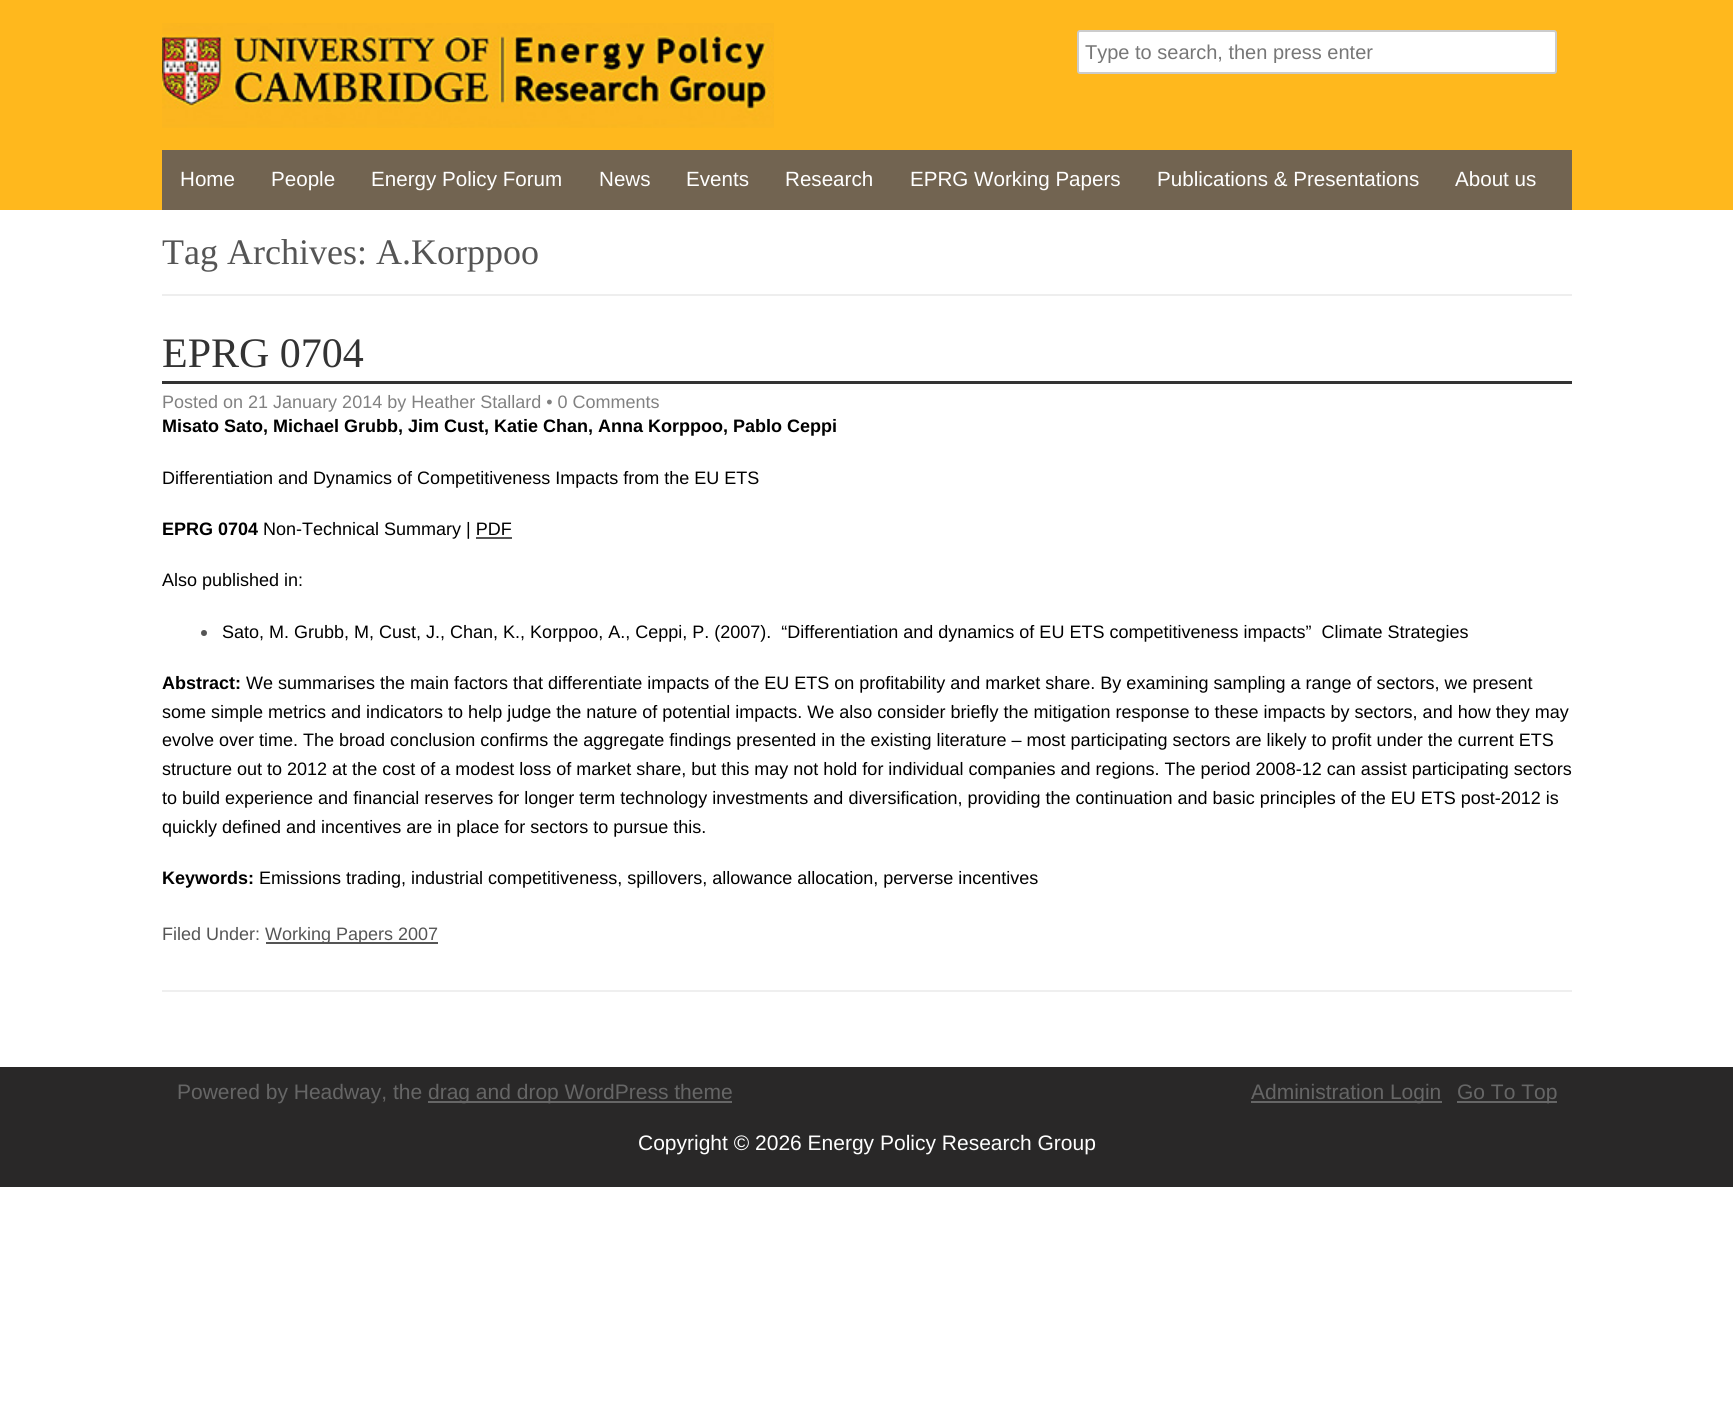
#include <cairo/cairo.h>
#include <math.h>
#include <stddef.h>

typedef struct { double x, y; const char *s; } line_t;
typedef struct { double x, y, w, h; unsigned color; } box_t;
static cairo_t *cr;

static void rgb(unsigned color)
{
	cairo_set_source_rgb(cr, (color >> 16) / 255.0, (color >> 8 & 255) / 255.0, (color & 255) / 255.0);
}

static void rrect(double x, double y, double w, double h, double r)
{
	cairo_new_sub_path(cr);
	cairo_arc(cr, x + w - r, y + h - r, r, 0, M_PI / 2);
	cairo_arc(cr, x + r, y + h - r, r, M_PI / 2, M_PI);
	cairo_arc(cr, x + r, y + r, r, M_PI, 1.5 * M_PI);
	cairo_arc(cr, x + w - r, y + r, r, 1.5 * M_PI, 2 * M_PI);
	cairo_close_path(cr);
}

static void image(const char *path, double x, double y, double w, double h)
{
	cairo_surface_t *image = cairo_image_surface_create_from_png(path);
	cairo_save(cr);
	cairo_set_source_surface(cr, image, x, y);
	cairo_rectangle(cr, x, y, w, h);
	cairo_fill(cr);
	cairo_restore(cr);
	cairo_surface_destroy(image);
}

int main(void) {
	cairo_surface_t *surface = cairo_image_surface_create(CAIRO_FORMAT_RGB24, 1733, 1414);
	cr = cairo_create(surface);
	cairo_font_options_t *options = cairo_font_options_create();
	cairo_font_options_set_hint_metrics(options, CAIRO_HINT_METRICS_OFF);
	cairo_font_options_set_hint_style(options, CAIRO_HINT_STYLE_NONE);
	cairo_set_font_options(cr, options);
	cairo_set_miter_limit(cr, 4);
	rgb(0xffffff);
	cairo_paint(cr);
	rgb(0xffb81d);
	cairo_rectangle(cr, 0, 0, 1733, 210);
	cairo_fill(cr);
	image("img/1.png", 162, 23, 612, 105);
	rgb(0xffffff);
	rrect(1078, 31, 478, 42, 2);
	cairo_fill_preserve(cr);
	rgb(0xcccccc);
	cairo_stroke(cr);
	{
		static const box_t items[] = {
			{162, 150, 1410, 60, 0x726451},
			{162, 294, 1410, 2, 0xeeeeee},
			{162, 990, 1410, 2, 0xefefef},
			{162, 381, 1410, 3, 0x333333},
		};
		for (size_t i = 0; i < sizeof items / sizeof *items; i++) {
			rgb(items[i].color);
			cairo_rectangle(cr, items[i].x, items[i].y, items[i].w, items[i].h);
			cairo_fill(cr);
		}
	}
	rgb(0x555555);
	cairo_arc(cr, 204, 633, 3, 0, 2 * M_PI);
	cairo_fill(cr);
	{
		static const box_t items[] = {
			{266, 942, 172, 2, 0x555555},
			{0, 1067, 1733, 120, 0x292828},
			{428, 1101, 304, 2, 0x666666},
			{1251, 1101, 191, 2, 0x666666},
			{1457, 1101, 100, 2, 0x666666},
		};
		for (size_t i = 0; i < sizeof items / sizeof *items; i++) {
			rgb(items[i].color);
			cairo_rectangle(cr, items[i].x, items[i].y, items[i].w, items[i].h);
			cairo_fill(cr);
		}
	}
	cairo_save(cr);
	cairo_rectangle(cr, 1085, 41, 465, 22);
	cairo_clip(cr);
	cairo_select_font_face(cr, "Liberation Sans", CAIRO_FONT_SLANT_NORMAL, CAIRO_FONT_WEIGHT_NORMAL);
	cairo_set_font_size(cr, 20);
	rgb(0x777777);
	cairo_move_to(cr, 1085, 59);
	cairo_show_text(cr, "Type to search, then press enter");
	cairo_restore(cr);
	cairo_select_font_face(cr, "Liberation Sans", CAIRO_FONT_SLANT_NORMAL, CAIRO_FONT_WEIGHT_NORMAL);
	cairo_set_font_size(cr, 20.6);
	rgb(0xffffff);
	{
		static const line_t items[] = {
			{180, 186, "Home"},
			{271, 186, "People"},
			{371, 186, "Energy Policy Forum"},
			{599, 186, "News"},
			{686, 186, "Events"},
			{785, 186, "Research"},
			{910, 186, "EPRG Working Papers"},
			{1157, 186, "Publications & Presentations"},
			{1455, 186, "About us"},
		};
		for (size_t i = 0; i < sizeof items / sizeof *items; i++) {
			cairo_move_to(cr, items[i].x, items[i].y);
			cairo_show_text(cr, items[i].s);
		}
	}
	cairo_select_font_face(cr, "Liberation Serif", CAIRO_FONT_SLANT_NORMAL, CAIRO_FONT_WEIGHT_NORMAL);
	cairo_set_font_size(cr, 36);
	rgb(0x555555);
	cairo_move_to(cr, 162, 264);
	cairo_show_text(cr, "Tag Archives: A.Korppoo");
	cairo_set_font_size(cr, 42);
	rgb(0x333333);
	cairo_move_to(cr, 162, 367);
	cairo_show_text(cr, "EPRG 0704");
	cairo_select_font_face(cr, "Liberation Sans", CAIRO_FONT_SLANT_NORMAL, CAIRO_FONT_WEIGHT_NORMAL);
	cairo_set_font_size(cr, 18);
	rgb(0x818181);
	cairo_move_to(cr, 162, 408);
	cairo_show_text(cr, "Posted on 21 January 2014 by Heather Stallard • 0 Comments");
	cairo_select_font_face(cr, "Liberation Sans", CAIRO_FONT_SLANT_NORMAL, CAIRO_FONT_WEIGHT_BOLD);
	rgb(0x000000);
	cairo_move_to(cr, 162, 432);
	cairo_show_text(cr, "Misato Sato, Michael Grubb, Jim Cust, Katie Chan, Anna Korppoo, Pablo Ceppi");
	cairo_select_font_face(cr, "Liberation Sans", CAIRO_FONT_SLANT_NORMAL, CAIRO_FONT_WEIGHT_NORMAL);
	cairo_move_to(cr, 162, 484);
	cairo_show_text(cr, "Differentiation and Dynamics of Competitiveness Impacts from the EU ETS");
	cairo_select_font_face(cr, "Liberation Sans", CAIRO_FONT_SLANT_NORMAL, CAIRO_FONT_WEIGHT_BOLD);
	cairo_move_to(cr, 162, 535);
	cairo_show_text(cr, "EPRG 0704");
	cairo_select_font_face(cr, "Liberation Sans", CAIRO_FONT_SLANT_NORMAL, CAIRO_FONT_WEIGHT_NORMAL);
	cairo_move_to(cr, 263, 535);
	cairo_show_text(cr, "Non-Technical Summary | PDF");
	rgb(0x555555);
	cairo_rectangle(cr, 476, 537, 36, 2);
	cairo_fill(cr);
	rgb(0x000000);
	cairo_move_to(cr, 162, 586);
	cairo_show_text(cr, "Also published in:");
	cairo_move_to(cr, 222, 638);
	cairo_show_text(cr, "Sato, M. Grubb, M, Cust, J., Chan, K., Korppoo, A., Ceppi, P. (2007).  “Differentiation and dynamics of EU ETS competitiveness impacts”  Climate Strategies");
	cairo_select_font_face(cr, "Liberation Sans", CAIRO_FONT_SLANT_NORMAL, CAIRO_FONT_WEIGHT_BOLD);
	cairo_move_to(cr, 162, 689);
	cairo_show_text(cr, "Abstract:");
	cairo_select_font_face(cr, "Liberation Sans", CAIRO_FONT_SLANT_NORMAL, CAIRO_FONT_WEIGHT_NORMAL);
	{
		static const line_t items[] = {
			{246, 689, "We summarises the main factors that differentiate impacts of the EU ETS on profitability and market share. By examining sampling a range of sectors, we present"},
			{162, 718, "some simple metrics and indicators to help judge the nature of potential impacts. We also consider briefly the mitigation response to these impacts by sectors, and how they may"},
			{162, 746, "evolve over time. The broad conclusion confirms the aggregate findings presented in the existing literature – most participating sectors are likely to profit under the current ETS"},
			{162, 775, "structure out to 2012 at the cost of a modest loss of market share, but this may not hold for individual companies and regions. The period 2008-12 can assist participating sectors"},
			{162, 804, "to build experience and financial reserves for longer term technology investments and diversification, providing the continuation and basic principles of the EU ETS post-2012 is"},
			{162, 833, "quickly defined and incentives are in place for sectors to pursue this."},
		};
		for (size_t i = 0; i < sizeof items / sizeof *items; i++) {
			cairo_move_to(cr, items[i].x, items[i].y);
			cairo_show_text(cr, items[i].s);
		}
	}
	cairo_select_font_face(cr, "Liberation Sans", CAIRO_FONT_SLANT_NORMAL, CAIRO_FONT_WEIGHT_BOLD);
	cairo_move_to(cr, 162, 884);
	cairo_show_text(cr, "Keywords:");
	cairo_select_font_face(cr, "Liberation Sans", CAIRO_FONT_SLANT_NORMAL, CAIRO_FONT_WEIGHT_NORMAL);
	cairo_move_to(cr, 259, 884);
	cairo_show_text(cr, "Emissions trading, industrial competitiveness, spillovers, allowance allocation, perverse incentives");
	rgb(0x555555);
	cairo_move_to(cr, 162, 940);
	cairo_show_text(cr, "Filed Under:");
	cairo_move_to(cr, 265, 940);
	cairo_show_text(cr, "Working Papers 2007");
	cairo_set_font_size(cr, 21);
	rgb(0x666666);
	{
		static const line_t items[] = {
			{177, 1099, "Powered by Headway, the"},
			{428, 1099, "drag and drop WordPress theme"},
			{1251, 1099, "Administration Login"},
			{1457, 1099, "Go To Top"},
		};
		for (size_t i = 0; i < sizeof items / sizeof *items; i++) {
			cairo_move_to(cr, items[i].x, items[i].y);
			cairo_show_text(cr, items[i].s);
		}
	}
	rgb(0xffffff);
	cairo_move_to(cr, 638, 1150);
	cairo_show_text(cr, "Copyright © 2026 Energy Policy Research Group");
	cairo_surface_write_to_png(surface, "page.png");
	cairo_font_options_destroy(options);
	cairo_destroy(cr);
	cairo_surface_destroy(surface);
	return 0;
}
